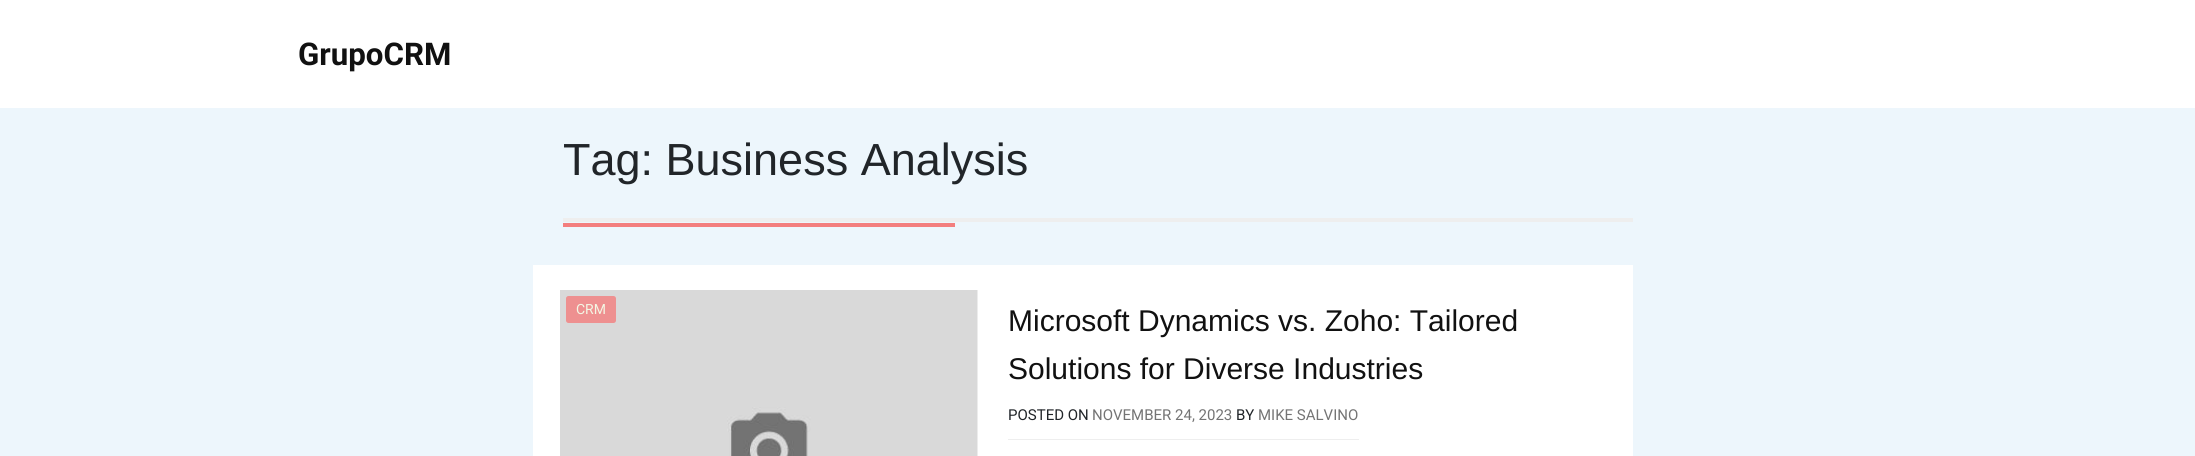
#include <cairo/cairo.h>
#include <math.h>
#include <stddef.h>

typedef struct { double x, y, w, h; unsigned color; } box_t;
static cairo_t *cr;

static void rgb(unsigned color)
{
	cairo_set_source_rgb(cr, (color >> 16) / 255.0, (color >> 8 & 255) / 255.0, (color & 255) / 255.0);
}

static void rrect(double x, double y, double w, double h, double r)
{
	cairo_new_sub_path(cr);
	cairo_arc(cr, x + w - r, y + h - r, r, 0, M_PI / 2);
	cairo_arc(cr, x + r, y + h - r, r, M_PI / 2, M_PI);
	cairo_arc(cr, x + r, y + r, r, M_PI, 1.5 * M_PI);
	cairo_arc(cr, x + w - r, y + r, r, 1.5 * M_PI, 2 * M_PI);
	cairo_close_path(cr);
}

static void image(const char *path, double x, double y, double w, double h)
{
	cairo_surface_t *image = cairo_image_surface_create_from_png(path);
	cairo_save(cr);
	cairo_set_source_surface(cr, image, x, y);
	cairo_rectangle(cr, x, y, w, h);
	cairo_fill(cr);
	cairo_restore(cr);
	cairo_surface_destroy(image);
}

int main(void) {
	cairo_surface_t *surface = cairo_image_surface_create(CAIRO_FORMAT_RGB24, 2195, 456);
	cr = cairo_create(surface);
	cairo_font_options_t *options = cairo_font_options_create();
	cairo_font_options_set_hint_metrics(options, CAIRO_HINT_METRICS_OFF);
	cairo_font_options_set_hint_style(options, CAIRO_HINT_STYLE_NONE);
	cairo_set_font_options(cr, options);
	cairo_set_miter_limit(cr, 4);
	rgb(0xedf6fc);
	cairo_paint(cr);
	{
		static const box_t items[] = {
			{0, 0, 2195, 108, 0xffffff},
			{563, 218, 1070, 4, 0xeeeeee},
			{563, 223, 392, 4, 0xf37e7e},
			{533, 265, 1100, 191, 0xffffff},
		};
		for (size_t i = 0; i < sizeof items / sizeof *items; i++) {
			rgb(items[i].color);
			cairo_rectangle(cr, items[i].x, items[i].y, items[i].w, items[i].h);
			cairo_fill(cr);
		}
	}
	image("img/1.png", 560, 290, 418, 166);
	rgb(0xee9090);
	rrect(566, 296, 50, 27, 2.5);
	cairo_fill(cr);
	rgb(0xeeeeee);
	cairo_rectangle(cr, 1008, 439, 351, 1);
	cairo_fill(cr);
	cairo_select_font_face(cr, "Roboto", CAIRO_FONT_SLANT_NORMAL, CAIRO_FONT_WEIGHT_BOLD);
	cairo_set_font_size(cr, 31.25);
	rgb(0x111111);
	cairo_move_to(cr, 298, 65);
	cairo_show_text(cr, "GrupoCRM");
	cairo_select_font_face(cr, "Liberation Sans", CAIRO_FONT_SLANT_NORMAL, CAIRO_FONT_WEIGHT_NORMAL);
	cairo_set_font_size(cr, 45);
	rgb(0x212529);
	cairo_move_to(cr, 563, 175);
	cairo_show_text(cr, "Tag: Business Analysis");
	cairo_select_font_face(cr, "Roboto", CAIRO_FONT_SLANT_NORMAL, CAIRO_FONT_WEIGHT_NORMAL);
	cairo_set_font_size(cr, 14);
	rgb(0xf3f7e4);
	cairo_move_to(cr, 576, 314);
	cairo_show_text(cr, "CRM");
	cairo_select_font_face(cr, "Liberation Sans", CAIRO_FONT_SLANT_NORMAL, CAIRO_FONT_WEIGHT_NORMAL);
	cairo_set_font_size(cr, 30);
	rgb(0x111111);
	cairo_move_to(cr, 1008, 331);
	cairo_show_text(cr, "Microsoft Dynamics vs. Zoho: Tailored");
	cairo_move_to(cr, 1008, 379);
	cairo_show_text(cr, "Solutions for Diverse Industries");
	cairo_select_font_face(cr, "Roboto", CAIRO_FONT_SLANT_NORMAL, CAIRO_FONT_WEIGHT_NORMAL);
	cairo_set_font_size(cr, 15);
	rgb(0x212529);
	cairo_move_to(cr, 1008, 420);
	cairo_show_text(cr, "POSTED ON");
	rgb(0x747474);
	cairo_move_to(cr, 1092, 420);
	cairo_show_text(cr, "NOVEMBER 24, 2023");
	rgb(0x212529);
	cairo_move_to(cr, 1236, 420);
	cairo_show_text(cr, "BY");
	rgb(0x747474);
	cairo_move_to(cr, 1258, 420);
	cairo_show_text(cr, "MIKE SALVINO");
	cairo_surface_write_to_png(surface, "page.png");
	cairo_font_options_destroy(options);
	cairo_destroy(cr);
	cairo_surface_destroy(surface);
	return 0;
}
